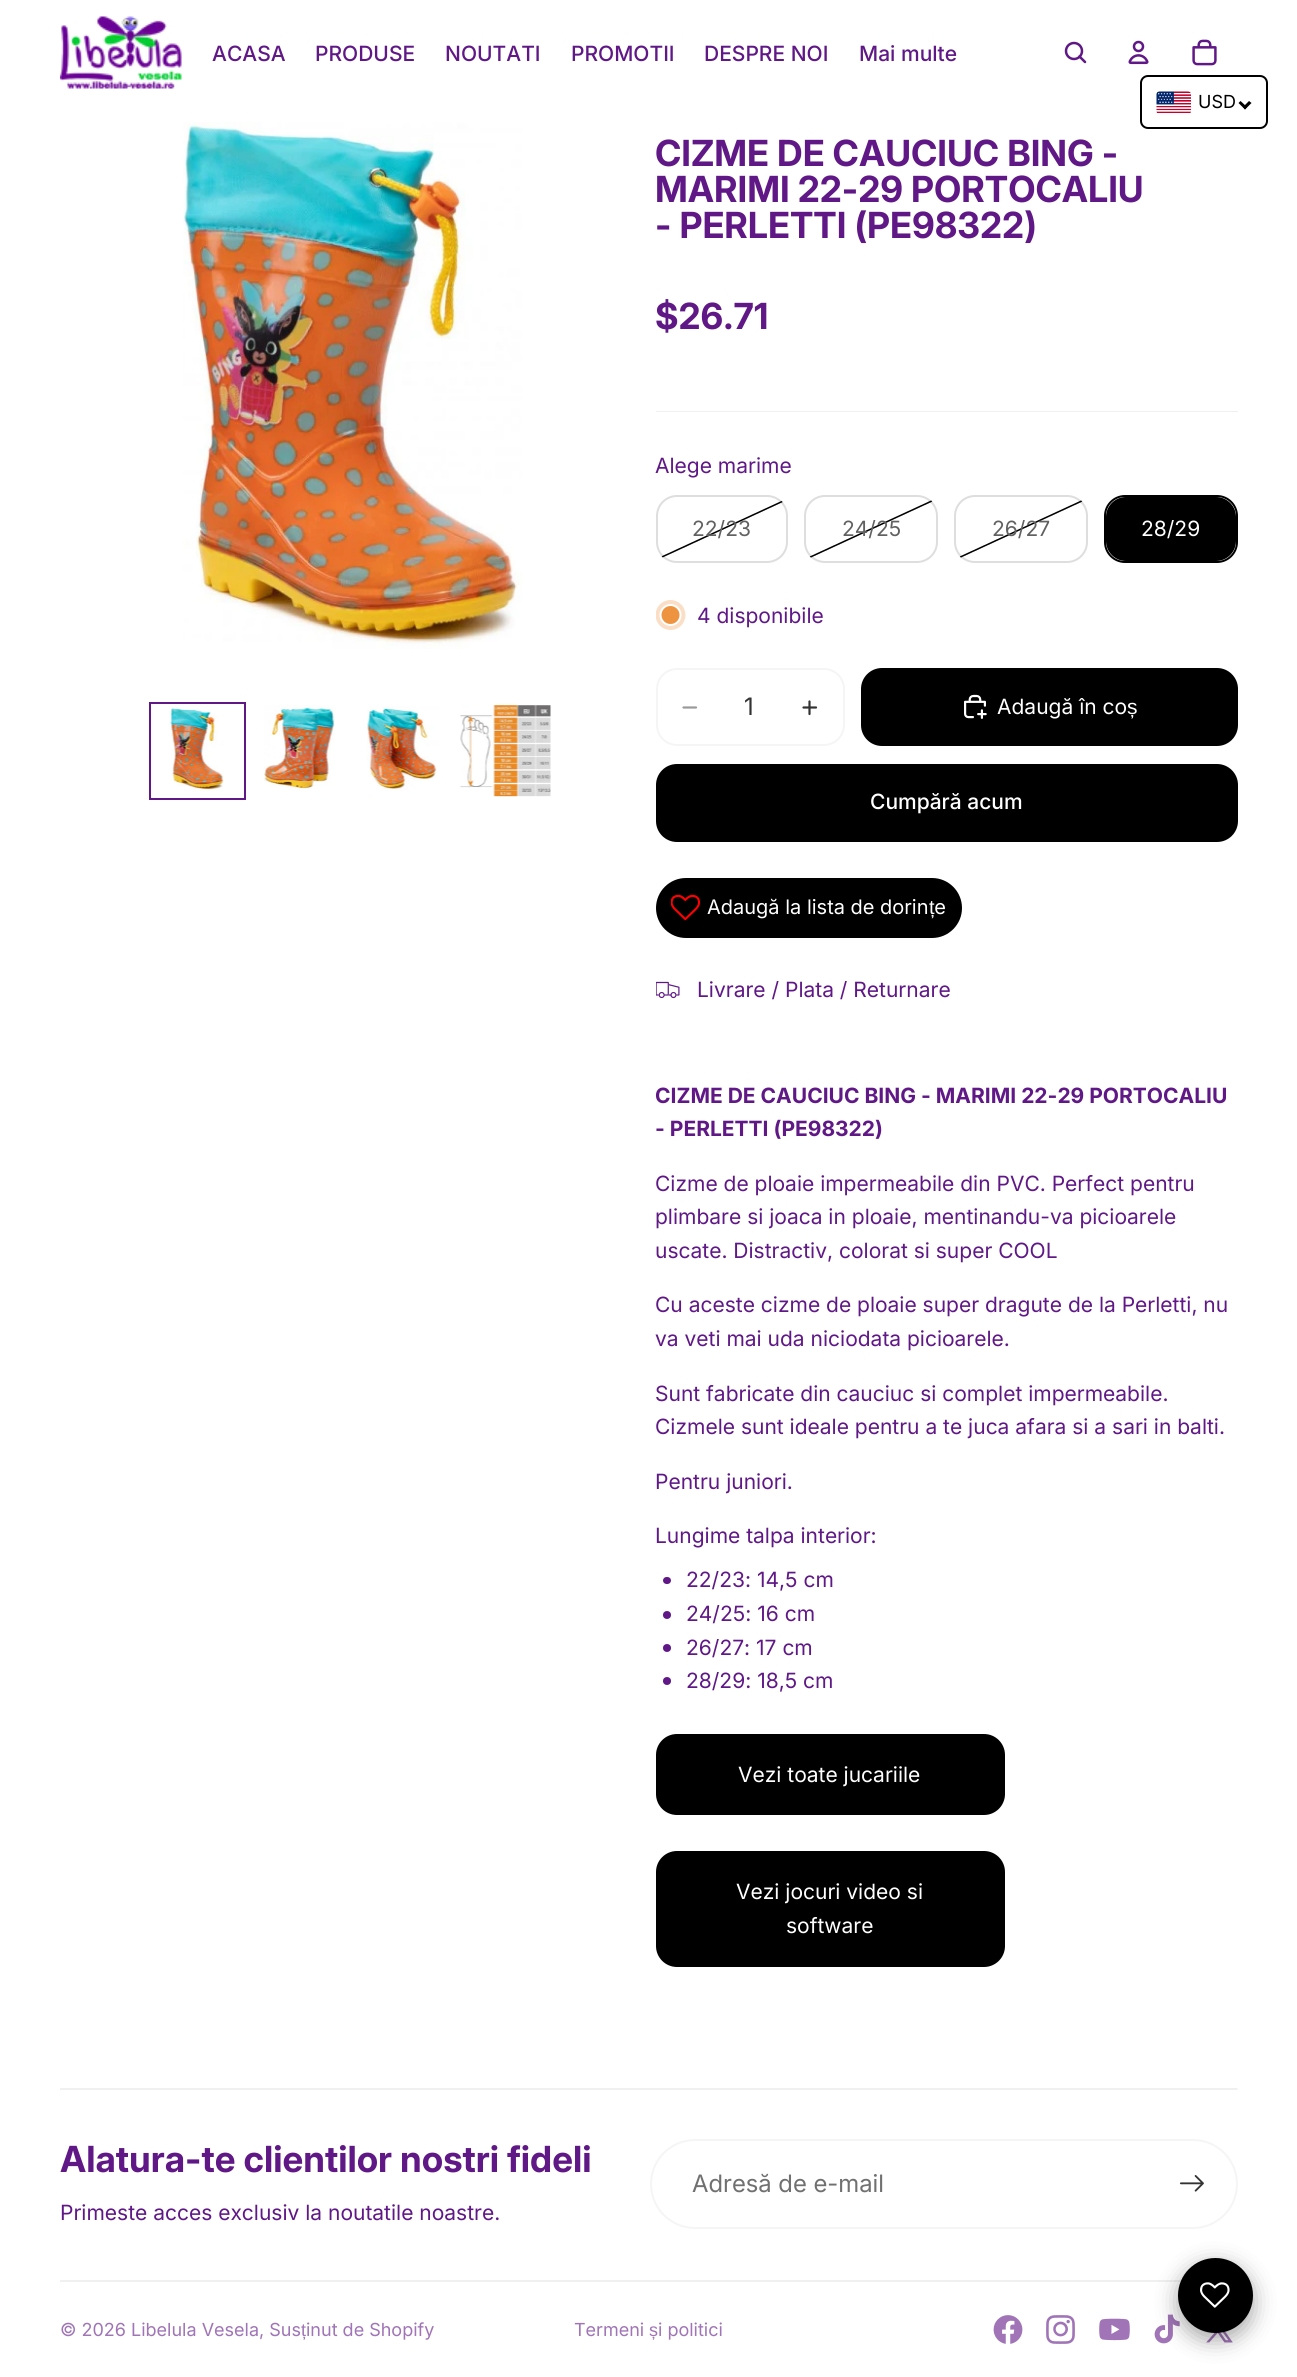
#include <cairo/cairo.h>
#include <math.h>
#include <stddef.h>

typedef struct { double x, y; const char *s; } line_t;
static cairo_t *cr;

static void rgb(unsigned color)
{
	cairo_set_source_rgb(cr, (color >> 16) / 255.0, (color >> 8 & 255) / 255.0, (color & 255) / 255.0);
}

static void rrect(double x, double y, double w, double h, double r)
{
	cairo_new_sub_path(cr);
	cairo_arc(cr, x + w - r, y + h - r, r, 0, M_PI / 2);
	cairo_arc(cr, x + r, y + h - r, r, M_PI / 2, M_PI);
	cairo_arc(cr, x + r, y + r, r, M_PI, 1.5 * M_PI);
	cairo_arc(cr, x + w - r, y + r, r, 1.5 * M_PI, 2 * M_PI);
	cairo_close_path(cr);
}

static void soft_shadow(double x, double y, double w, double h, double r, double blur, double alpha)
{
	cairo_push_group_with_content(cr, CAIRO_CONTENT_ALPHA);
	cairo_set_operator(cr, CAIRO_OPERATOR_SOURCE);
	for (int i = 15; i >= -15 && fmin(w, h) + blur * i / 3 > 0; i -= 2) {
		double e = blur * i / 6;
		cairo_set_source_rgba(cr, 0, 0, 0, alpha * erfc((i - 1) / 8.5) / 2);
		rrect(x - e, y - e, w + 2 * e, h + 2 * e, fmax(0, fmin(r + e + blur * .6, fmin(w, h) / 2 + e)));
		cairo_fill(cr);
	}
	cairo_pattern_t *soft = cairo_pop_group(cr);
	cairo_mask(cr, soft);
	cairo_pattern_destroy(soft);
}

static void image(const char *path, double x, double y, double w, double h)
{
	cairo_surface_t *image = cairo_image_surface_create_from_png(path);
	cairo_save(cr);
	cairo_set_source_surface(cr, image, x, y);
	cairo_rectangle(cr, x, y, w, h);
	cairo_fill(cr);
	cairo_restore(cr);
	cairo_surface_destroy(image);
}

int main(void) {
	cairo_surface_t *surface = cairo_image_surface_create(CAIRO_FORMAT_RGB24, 1297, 2377);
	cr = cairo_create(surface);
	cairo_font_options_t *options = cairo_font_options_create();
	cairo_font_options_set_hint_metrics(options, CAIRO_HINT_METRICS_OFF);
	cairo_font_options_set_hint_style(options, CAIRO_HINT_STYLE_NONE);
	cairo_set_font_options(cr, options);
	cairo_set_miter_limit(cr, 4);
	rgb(0xffffff);
	cairo_paint(cr);
	image("img/1.png", 60, 16, 122, 73);
	cairo_arc(cr, 1074, 51, 8, 0, 2 * M_PI);
	rgb(0x601886);
	cairo_set_line_width(cr, 2.5);
	cairo_stroke(cr);
	cairo_new_path(cr);
	cairo_move_to(cr, 1079.5, 56.5);
	cairo_line_to(cr, 1085, 62);
	cairo_set_line_cap(cr, CAIRO_LINE_CAP_ROUND);
	cairo_set_line_join(cr, CAIRO_LINE_JOIN_ROUND);
	cairo_stroke(cr);
	image("img/2.png", 1128, 40, 21, 25);
	image("img/3.png", 1192, 39, 25, 27);
	rrect(1141, 76, 126, 52, 7);
	rgb(0x000000);
	cairo_set_line_width(cr, 2);
	cairo_set_line_cap(cr, CAIRO_LINE_CAP_BUTT);
	cairo_set_line_join(cr, CAIRO_LINE_JOIN_MITER);
	cairo_stroke(cr);
	image("img/4.png", 1156, 91, 35, 22);
	cairo_new_path(cr);
	cairo_move_to(cr, 1249, 101);
	cairo_line_to(cr, 1251.5, 103);
	cairo_line_to(cr, 1245, 109.5);
	cairo_line_to(cr, 1243, 107);
	cairo_close_path(cr);
	cairo_fill(cr);
	cairo_new_path(cr);
	cairo_move_to(cr, 1240.5, 101);
	cairo_line_to(cr, 1247, 107);
	cairo_line_to(cr, 1245, 109.5);
	cairo_line_to(cr, 1238.5, 103);
	cairo_close_path(cr);
	cairo_fill(cr);
	image("img/5.png", 183, 122, 340, 527);
	image("img/6.png", 168, 705, 56, 87);
	cairo_rectangle(cr, 150, 703, 95, 96);
	rgb(0x601886);
	cairo_stroke(cr);
	image("img/7.png", 264, 705, 71, 86);
	image("img/8.png", 367, 706, 72, 85);
	image("img/9.png", 460, 705, 91, 92);
	rgb(0xf0f0f0);
	cairo_new_path(cr);
	cairo_move_to(cr, 1237.5, 411);
	cairo_line_to(cr, 1237.5, 412.5);
	cairo_line_to(cr, 1236, 411);
	cairo_close_path(cr);
	cairo_fill(cr);
	cairo_set_source_rgba(cr, 0, 0, 0, 0.06);
	cairo_new_path(cr);
	cairo_move_to(cr, 1238, 412);
	cairo_line_to(cr, 656, 412);
	cairo_line_to(cr, 656, 411);
	cairo_line_to(cr, 1236, 411);
	cairo_close_path(cr);
	cairo_fill(cr);
	cairo_save(cr);
	rrect(656, 495, 132, 68, 21);
	cairo_clip(cr);
	cairo_new_path(cr);
	cairo_move_to(cr, 793, 496.5);
	cairo_line_to(cr, 651, 562);
	rgb(0xdedede);
	cairo_set_line_width(cr, 1.5);
	cairo_stroke(cr);
	cairo_new_path(cr);
	cairo_move_to(cr, 793, 496.5);
	cairo_line_to(cr, 651, 562);
	rgb(0x000000);
	cairo_stroke(cr);
	cairo_restore(cr);
	rrect(657, 496, 130, 66, 20);
	cairo_set_source_rgba(cr, 0, 0, 0, 0.13);
	cairo_stroke(cr);
	cairo_save(cr);
	rrect(804, 495, 134, 68, 21);
	cairo_clip(cr);
	cairo_new_path(cr);
	cairo_move_to(cr, 941.5, 496.5);
	cairo_line_to(cr, 799.5, 562);
	rgb(0xdedede);
	cairo_set_line_width(cr, 1.5);
	cairo_stroke(cr);
	cairo_new_path(cr);
	cairo_move_to(cr, 941.5, 496.5);
	cairo_line_to(cr, 799.5, 562);
	rgb(0x000000);
	cairo_stroke(cr);
	cairo_restore(cr);
	rrect(805, 496, 132, 66, 20);
	cairo_stroke(cr);
	cairo_save(cr);
	rrect(954, 495, 134, 68, 21);
	cairo_clip(cr);
	cairo_new_path(cr);
	cairo_move_to(cr, 1091.5, 496.5);
	cairo_line_to(cr, 949.5, 562);
	rgb(0xdedede);
	cairo_set_line_width(cr, 1.5);
	cairo_stroke(cr);
	cairo_new_path(cr);
	cairo_move_to(cr, 1091.5, 496.5);
	cairo_line_to(cr, 949.5, 562);
	rgb(0x000000);
	cairo_stroke(cr);
	cairo_restore(cr);
	rrect(955, 496, 132, 66, 20);
	cairo_stroke(cr);
	rrect(1105, 496, 132, 66, 20);
	rgb(0x000000);
	cairo_stroke(cr);
	cairo_save(cr);
	rrect(1106, 497, 130, 64, 20);
	cairo_clip(cr);
	rrect(1104, 495, 134, 68, 21);
	cairo_fill(cr);
	cairo_restore(cr);
	cairo_save(cr);
	cairo_rectangle(cr, 656, 600, 30, 30);
	cairo_clip(cr);
	rgb(0xfadfc6);
	cairo_arc(cr, 670.5, 615, 15, 0, 2 * M_PI);
	cairo_fill(cr);
	cairo_restore(cr);
	rgb(0xee9441);
	cairo_arc(cr, 670.5, 615, 10, 0, 2 * M_PI);
	cairo_fill_preserve(cr);
	rgb(0xffffff);
	cairo_stroke(cr);
	rrect(657, 669, 187, 76, 20);
	rgb(0xf5f5f5);
	cairo_stroke(cr);
	cairo_new_path(cr);
	cairo_move_to(cr, 683.5, 707.5);
	cairo_line_to(cr, 696, 707.5);
	rgb(0x999999);
	cairo_set_line_width(cr, 2.2);
	cairo_set_line_cap(cr, CAIRO_LINE_CAP_ROUND);
	cairo_stroke(cr);
	cairo_new_path(cr);
	cairo_move_to(cr, 803.5, 707.5);
	cairo_line_to(cr, 816, 707.5);
	cairo_move_to(cr, 809.5, 701.5);
	cairo_line_to(cr, 809.5, 714);
	rgb(0x333333);
	cairo_stroke(cr);
	rgb(0x000000);
	rrect(861, 668, 377, 78, 21);
	cairo_fill(cr);
	image("img/10.png", 964, 694, 23, 25);
	rrect(656, 764, 582, 78, 21);
	cairo_fill(cr);
	rrect(656, 878, 306, 60, 30);
	cairo_fill(cr);
	image("img/11.png", 671, 894, 30, 27);
	image("img/12.png", 656, 981, 24, 18);
	rgb(0x601886);
	rrect(663, 1577, 8, 7, 3.5);
	cairo_fill(cr);
	cairo_arc(cr, 667, 1615, 4, 0, 2 * M_PI);
	cairo_fill(cr);
	cairo_arc(cr, 667, 1648, 4, 0, 2 * M_PI);
	cairo_fill(cr);
	cairo_arc(cr, 667, 1681, 4, 0, 2 * M_PI);
	cairo_fill(cr);
	rgb(0x000000);
	rrect(656, 1734, 349, 81, 21);
	cairo_fill(cr);
	rrect(656, 1851, 349, 116, 21);
	cairo_fill(cr);
	rgb(0xf0f0f0);
	cairo_new_path(cr);
	cairo_move_to(cr, 1237.5, 2088);
	cairo_line_to(cr, 1237.5, 2089.5);
	cairo_line_to(cr, 1236, 2088);
	cairo_close_path(cr);
	cairo_fill(cr);
	cairo_set_source_rgba(cr, 0, 0, 0, 0.06);
	cairo_new_path(cr);
	cairo_move_to(cr, 1238, 2090);
	cairo_line_to(cr, 60, 2090);
	cairo_line_to(cr, 60, 2088);
	cairo_line_to(cr, 1236, 2088);
	cairo_close_path(cr);
	cairo_fill(cr);
	rrect(651, 2140, 586, 88, 44);
	rgb(0xf5f5f5);
	cairo_set_line_width(cr, 2);
	cairo_set_line_cap(cr, CAIRO_LINE_CAP_BUTT);
	cairo_stroke(cr);
	image("img/13.png", 1179, 2175, 25, 17);
	rgb(0xf0f0f0);
	cairo_rectangle(cr, 60, 2280, 1122, 2);
	cairo_fill(cr);
	image("img/14.png", 993, 2315, 30, 29);
	image("img/15.png", 1046, 2315, 29, 29);
	image("img/16.png", 1099, 2318, 31, 23);
	image("img/17.png", 1154, 2314, 26, 30);
	image("img/18.png", 1206, 2331, 27, 12);
	rgb(0x000000);
	soft_shadow(1178, 2265, 75, 75, 37.5, 11, 0.35);
	rgb(0x000000);
	cairo_arc(cr, 1215.5, 2295.5, 37.5, 0, 2 * M_PI);
	cairo_fill(cr);
	image("img/19.png", 1200, 2282, 30, 26);
	cairo_select_font_face(cr, "Inter Medium", CAIRO_FONT_SLANT_NORMAL, CAIRO_FONT_WEIGHT_NORMAL);
	cairo_set_font_size(cr, 21);
	rgb(0x601886);
	{
		static const line_t items[] = {
			{212, 61, "ACASA"},
			{315, 61, "PRODUSE"},
			{445, 61, "NOUTATI"},
			{571, 61, "PROMOTII"},
			{704, 61, "DESPRE NOI"},
			{859, 61, "Mai multe"},
		};
		for (size_t i = 0; i < sizeof items / sizeof *items; i++) {
			cairo_move_to(cr, items[i].x, items[i].y);
			cairo_show_text(cr, items[i].s);
		}
	}
	cairo_select_font_face(cr, "Inter", CAIRO_FONT_SLANT_NORMAL, CAIRO_FONT_WEIGHT_NORMAL);
	cairo_set_font_size(cr, 18);
	rgb(0x000000);
	cairo_move_to(cr, 1198, 108);
	cairo_show_text(cr, "USD");
	cairo_select_font_face(cr, "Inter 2", CAIRO_FONT_SLANT_NORMAL, CAIRO_FONT_WEIGHT_BOLD);
	cairo_set_font_size(cr, 36);
	rgb(0x601886);
	{
		static const line_t items[] = {
			{655, 166, "CIZME DE CAUCIUC BING -"},
			{655, 202, "MARIMI 22-29 PORTOCALIU"},
			{655, 238, "- PERLETTI (PE98322)"},
			{655, 329, "$26.71"},
		};
		for (size_t i = 0; i < sizeof items / sizeof *items; i++) {
			cairo_move_to(cr, items[i].x, items[i].y);
			cairo_show_text(cr, items[i].s);
		}
	}
	cairo_select_font_face(cr, "Inter", CAIRO_FONT_SLANT_NORMAL, CAIRO_FONT_WEIGHT_NORMAL);
	cairo_set_font_size(cr, 21);
	cairo_move_to(cr, 655, 473);
	cairo_show_text(cr, "Alege marime");
	rgb(0x616161);
	{
		static const line_t items[] = {
			{692, 536, "22/23"},
			{842, 536, "24/25"},
			{992, 536, "26/27"},
		};
		for (size_t i = 0; i < sizeof items / sizeof *items; i++) {
			cairo_move_to(cr, items[i].x, items[i].y);
			cairo_show_text(cr, items[i].s);
		}
	}
	rgb(0xffffff);
	cairo_move_to(cr, 1141, 536);
	cairo_show_text(cr, "28/29");
	rgb(0x601886);
	cairo_move_to(cr, 697, 623);
	cairo_show_text(cr, "4 disponibile");
	cairo_select_font_face(cr, "Inter 2", CAIRO_FONT_SLANT_NORMAL, CAIRO_FONT_WEIGHT_NORMAL);
	cairo_set_font_size(cr, 24);
	rgb(0x333333);
	cairo_move_to(cr, 744, 715);
	cairo_show_text(cr, "1");
	cairo_select_font_face(cr, "Inter", CAIRO_FONT_SLANT_NORMAL, CAIRO_FONT_WEIGHT_NORMAL);
	cairo_set_font_size(cr, 21);
	rgb(0xffffff);
	cairo_move_to(cr, 997, 714);
	cairo_show_text(cr, "Adaugă în co");
	cairo_select_font_face(cr, "Liberation Sans", CAIRO_FONT_SLANT_NORMAL, CAIRO_FONT_WEIGHT_NORMAL);
	cairo_move_to(cr, 1127, 714);
	cairo_show_text(cr, "ș");
	cairo_select_font_face(cr, "Inter Medium", CAIRO_FONT_SLANT_NORMAL, CAIRO_FONT_WEIGHT_NORMAL);
	cairo_move_to(cr, 870, 809);
	cairo_show_text(cr, "Cumpără acum");
	cairo_select_font_face(cr, "Inter", CAIRO_FONT_SLANT_NORMAL, CAIRO_FONT_WEIGHT_NORMAL);
	cairo_set_font_size(cr, 20);
	cairo_move_to(cr, 707, 914);
	cairo_show_text(cr, "Adaugă la lista de dorin e");
	cairo_select_font_face(cr, "Liberation Sans", CAIRO_FONT_SLANT_NORMAL, CAIRO_FONT_WEIGHT_NORMAL);
	cairo_move_to(cr, 929, 914);
	cairo_show_text(cr, "ț");
	cairo_select_font_face(cr, "Inter", CAIRO_FONT_SLANT_NORMAL, CAIRO_FONT_WEIGHT_NORMAL);
	cairo_set_font_size(cr, 21);
	rgb(0x601886);
	cairo_move_to(cr, 697, 997);
	cairo_show_text(cr, "Livrare / Plata / Returnare");
	cairo_select_font_face(cr, "Inter", CAIRO_FONT_SLANT_NORMAL, CAIRO_FONT_WEIGHT_BOLD);
	cairo_move_to(cr, 655, 1103);
	cairo_show_text(cr, "CIZME DE CAUCIUC BING - MARIMI 22-29 PORTOCALIU");
	cairo_move_to(cr, 655, 1136);
	cairo_show_text(cr, "- PERLETTI (PE98322)");
	cairo_select_font_face(cr, "Inter", CAIRO_FONT_SLANT_NORMAL, CAIRO_FONT_WEIGHT_NORMAL);
	{
		static const line_t items[] = {
			{655, 1191, "Cizme de ploaie impermeabile din PVC. Perfect pentru"},
			{655, 1224, "plimbare si joaca in ploaie, mentinandu-va picioarele"},
			{655, 1258, "uscate. Distractiv, colorat si super COOL"},
			{655, 1312, "Cu aceste cizme de ploaie super dragute de la Perletti, nu"},
			{655, 1346, "va veti mai uda niciodata picioarele."},
			{655, 1401, "Sunt fabricate din cauciuc si complet impermeabile."},
			{655, 1434, "Cizmele sunt ideale pentru a te juca afara si a sari in balti."},
			{655, 1489, "Pentru juniori."},
			{655, 1543, "Lungime talpa interior:"},
			{686, 1587, "22/23: 14,5 cm"},
			{686, 1621, "24/25: 16 cm"},
			{686, 1655, "26/27: 17 cm"},
			{686, 1688, "28/29: 18,5 cm"},
		};
		for (size_t i = 0; i < sizeof items / sizeof *items; i++) {
			cairo_move_to(cr, items[i].x, items[i].y);
			cairo_show_text(cr, items[i].s);
		}
	}
	rgb(0xffffff);
	{
		static const line_t items[] = {
			{738, 1782, "Vezi toate jucariile"},
			{736, 1899, "Vezi jocuri video si"},
			{786, 1933, "software"},
		};
		for (size_t i = 0; i < sizeof items / sizeof *items; i++) {
			cairo_move_to(cr, items[i].x, items[i].y);
			cairo_show_text(cr, items[i].s);
		}
	}
	cairo_select_font_face(cr, "Inter 2", CAIRO_FONT_SLANT_NORMAL, CAIRO_FONT_WEIGHT_BOLD);
	cairo_set_font_size(cr, 36);
	rgb(0x601886);
	cairo_move_to(cr, 60, 2172);
	cairo_show_text(cr, "Alatura-te clientilor nostri fideli");
	cairo_select_font_face(cr, "Inter", CAIRO_FONT_SLANT_NORMAL, CAIRO_FONT_WEIGHT_NORMAL);
	cairo_set_font_size(cr, 21);
	cairo_move_to(cr, 60, 2220);
	cairo_show_text(cr, "Primeste acces exclusiv la noutatile noastre.");
	cairo_select_font_face(cr, "Inter 2", CAIRO_FONT_SLANT_NORMAL, CAIRO_FONT_WEIGHT_NORMAL);
	cairo_set_font_size(cr, 24);
	rgb(0x707070);
	cairo_move_to(cr, 692, 2192);
	cairo_show_text(cr, "Adresă de e-mail");
	cairo_select_font_face(cr, "Inter", CAIRO_FONT_SLANT_NORMAL, CAIRO_FONT_WEIGHT_NORMAL);
	cairo_set_font_size(cr, 18);
	rgb(0xa074b6);
	cairo_move_to(cr, 60, 2336);
	cairo_show_text(cr, "© 2026 Libelula Vesela, Sus inut de Shopify");
	cairo_select_font_face(cr, "Liberation Sans", CAIRO_FONT_SLANT_NORMAL, CAIRO_FONT_WEIGHT_NORMAL);
	cairo_move_to(cr, 301, 2336);
	cairo_show_text(cr, "ț");
	cairo_select_font_face(cr, "Inter", CAIRO_FONT_SLANT_NORMAL, CAIRO_FONT_WEIGHT_NORMAL);
	cairo_move_to(cr, 574, 2336);
	cairo_show_text(cr, "Termeni");
	cairo_select_font_face(cr, "Liberation Sans", CAIRO_FONT_SLANT_NORMAL, CAIRO_FONT_WEIGHT_NORMAL);
	cairo_move_to(cr, 649, 2336);
	cairo_show_text(cr, "ș");
	cairo_select_font_face(cr, "Inter", CAIRO_FONT_SLANT_NORMAL, CAIRO_FONT_WEIGHT_NORMAL);
	cairo_move_to(cr, 658, 2336);
	cairo_show_text(cr, "i politici");
	cairo_surface_write_to_png(surface, "page.png");
	cairo_font_options_destroy(options);
	cairo_destroy(cr);
	cairo_surface_destroy(surface);
	return 0;
}
